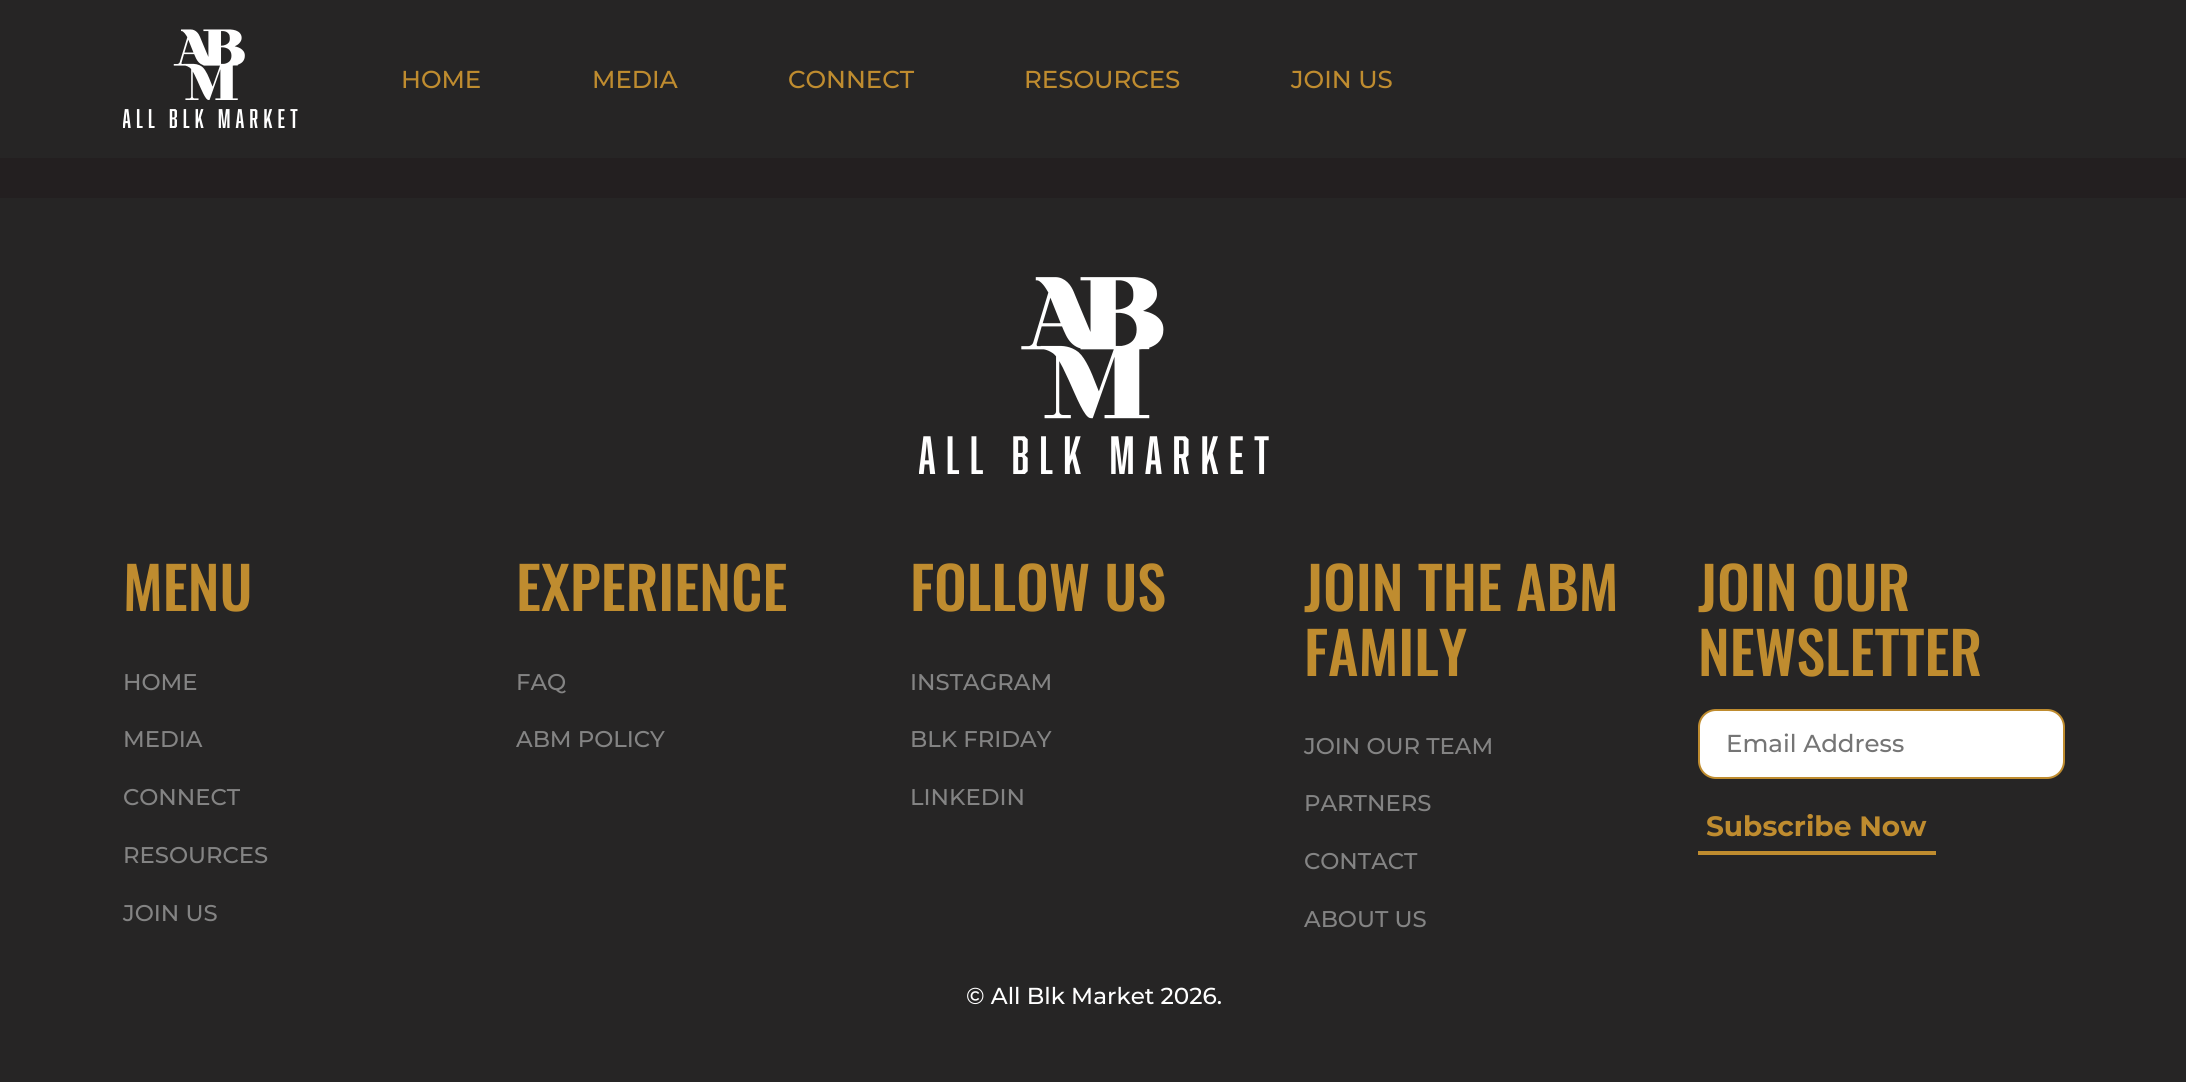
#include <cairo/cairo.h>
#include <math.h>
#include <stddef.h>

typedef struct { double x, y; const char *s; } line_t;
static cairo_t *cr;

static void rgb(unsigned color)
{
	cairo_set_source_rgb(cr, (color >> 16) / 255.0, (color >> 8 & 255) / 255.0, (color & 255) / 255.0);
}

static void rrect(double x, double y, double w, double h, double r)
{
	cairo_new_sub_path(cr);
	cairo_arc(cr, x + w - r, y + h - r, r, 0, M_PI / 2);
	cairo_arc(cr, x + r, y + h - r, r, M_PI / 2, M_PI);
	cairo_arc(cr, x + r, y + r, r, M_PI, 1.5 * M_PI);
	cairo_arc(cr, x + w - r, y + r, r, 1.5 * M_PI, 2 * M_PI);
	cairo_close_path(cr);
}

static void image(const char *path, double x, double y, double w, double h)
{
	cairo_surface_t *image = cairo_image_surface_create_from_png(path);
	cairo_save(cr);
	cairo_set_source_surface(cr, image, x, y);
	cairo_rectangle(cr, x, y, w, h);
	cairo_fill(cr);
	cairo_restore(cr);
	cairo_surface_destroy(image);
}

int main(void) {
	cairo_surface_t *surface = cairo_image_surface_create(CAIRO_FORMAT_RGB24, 2186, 1082);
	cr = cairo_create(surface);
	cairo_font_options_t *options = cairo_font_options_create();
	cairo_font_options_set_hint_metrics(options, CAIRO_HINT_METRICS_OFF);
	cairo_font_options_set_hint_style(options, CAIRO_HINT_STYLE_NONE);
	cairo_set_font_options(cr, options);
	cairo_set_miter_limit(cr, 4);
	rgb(0x231f20);
	cairo_paint(cr);
	rgb(0x262525);
	cairo_rectangle(cr, 0, 0, 2186, 158);
	cairo_fill(cr);
	image("img/1.png", 123, 29, 175, 99);
	cairo_rectangle(cr, 0, 198, 2186, 884);
	cairo_fill(cr);
	image("img/2.png", 919, 277, 350, 197);
	rgb(0xffffff);
	rrect(1699, 710, 365, 68, 17);
	cairo_fill_preserve(cr);
	rgb(0xbf8c2f);
	cairo_stroke(cr);
	cairo_rectangle(cr, 1698, 851, 238, 4);
	cairo_fill(cr);
	cairo_select_font_face(cr, "Montserrat Medium", CAIRO_FONT_SLANT_NORMAL, CAIRO_FONT_WEIGHT_NORMAL);
	cairo_set_font_size(cr, 24.5);
	{
		static const line_t items[] = {
			{401, 88, "HOME"},
			{592, 88, "MEDIA"},
			{788, 88, "CONNECT"},
			{1024, 88, "RESOURCES"},
			{1291, 88, "JOIN US"},
		};
		for (size_t i = 0; i < sizeof items / sizeof *items; i++) {
			cairo_move_to(cr, items[i].x, items[i].y);
			cairo_show_text(cr, items[i].s);
		}
	}
	cairo_select_font_face(cr, "Oswald Medium", CAIRO_FONT_SLANT_NORMAL, CAIRO_FONT_WEIGHT_NORMAL);
	cairo_set_font_size(cr, 58.25);
	cairo_move_to(cr, 123, 611);
	cairo_show_text(cr, "MENU");
	cairo_select_font_face(cr, "Montserrat Medium", CAIRO_FONT_SLANT_NORMAL, CAIRO_FONT_WEIGHT_NORMAL);
	cairo_set_font_size(cr, 22.75);
	rgb(0x848484);
	{
		static const line_t items[] = {
			{123, 690, "HOME"},
			{123, 747, "MEDIA"},
			{123, 805, "CONNECT"},
			{123, 863, "RESOURCES"},
			{123, 921, "JOIN US"},
		};
		for (size_t i = 0; i < sizeof items / sizeof *items; i++) {
			cairo_move_to(cr, items[i].x, items[i].y);
			cairo_show_text(cr, items[i].s);
		}
	}
	cairo_select_font_face(cr, "Oswald Medium", CAIRO_FONT_SLANT_NORMAL, CAIRO_FONT_WEIGHT_NORMAL);
	cairo_set_font_size(cr, 58.25);
	rgb(0xbf8c2f);
	cairo_move_to(cr, 516, 611);
	cairo_show_text(cr, "EXPERIENCE");
	cairo_select_font_face(cr, "Montserrat Medium", CAIRO_FONT_SLANT_NORMAL, CAIRO_FONT_WEIGHT_NORMAL);
	cairo_set_font_size(cr, 22.75);
	rgb(0x848484);
	cairo_move_to(cr, 516, 690);
	cairo_show_text(cr, "FAQ");
	cairo_move_to(cr, 516, 747);
	cairo_show_text(cr, "ABM POLICY");
	cairo_select_font_face(cr, "Oswald Medium", CAIRO_FONT_SLANT_NORMAL, CAIRO_FONT_WEIGHT_NORMAL);
	cairo_set_font_size(cr, 58.25);
	rgb(0xbf8c2f);
	cairo_move_to(cr, 910, 611);
	cairo_show_text(cr, "FOLLOW US");
	cairo_select_font_face(cr, "Montserrat Medium", CAIRO_FONT_SLANT_NORMAL, CAIRO_FONT_WEIGHT_NORMAL);
	cairo_set_font_size(cr, 22.75);
	rgb(0x848484);
	{
		static const line_t items[] = {
			{910, 690, "INSTAGRAM"},
			{910, 747, "BLK FRIDAY"},
			{910, 805, "LINKEDIN"},
		};
		for (size_t i = 0; i < sizeof items / sizeof *items; i++) {
			cairo_move_to(cr, items[i].x, items[i].y);
			cairo_show_text(cr, items[i].s);
		}
	}
	cairo_select_font_face(cr, "Oswald Medium", CAIRO_FONT_SLANT_NORMAL, CAIRO_FONT_WEIGHT_NORMAL);
	cairo_set_font_size(cr, 58.25);
	rgb(0xbf8c2f);
	cairo_move_to(cr, 1304, 611);
	cairo_show_text(cr, "JOIN THE ABM");
	cairo_move_to(cr, 1304, 676);
	cairo_show_text(cr, "FAMILY");
	cairo_select_font_face(cr, "Montserrat Medium", CAIRO_FONT_SLANT_NORMAL, CAIRO_FONT_WEIGHT_NORMAL);
	cairo_set_font_size(cr, 22.75);
	rgb(0x848484);
	{
		static const line_t items[] = {
			{1304, 754, "JOIN OUR TEAM"},
			{1304, 811, "PARTNERS"},
			{1304, 869, "CONTACT"},
			{1304, 927, "ABOUT US"},
		};
		for (size_t i = 0; i < sizeof items / sizeof *items; i++) {
			cairo_move_to(cr, items[i].x, items[i].y);
			cairo_show_text(cr, items[i].s);
		}
	}
	cairo_select_font_face(cr, "Oswald Medium", CAIRO_FONT_SLANT_NORMAL, CAIRO_FONT_WEIGHT_NORMAL);
	cairo_set_font_size(cr, 58.25);
	rgb(0xbf8c2f);
	cairo_move_to(cr, 1698, 611);
	cairo_show_text(cr, "JOIN OUR");
	cairo_move_to(cr, 1698, 676);
	cairo_show_text(cr, "NEWSLETTER");
	cairo_select_font_face(cr, "Montserrat Medium", CAIRO_FONT_SLANT_NORMAL, CAIRO_FONT_WEIGHT_NORMAL);
	cairo_set_font_size(cr, 24.5);
	rgb(0x757575);
	cairo_move_to(cr, 1726, 752);
	cairo_show_text(cr, "Email Address");
	cairo_select_font_face(cr, "Montserrat", CAIRO_FONT_SLANT_NORMAL, CAIRO_FONT_WEIGHT_BOLD);
	cairo_set_font_size(cr, 28);
	rgb(0xbf8c2f);
	cairo_move_to(cr, 1706, 836);
	cairo_show_text(cr, "Subscribe Now");
	cairo_select_font_face(cr, "Montserrat Medium", CAIRO_FONT_SLANT_NORMAL, CAIRO_FONT_WEIGHT_NORMAL);
	cairo_set_font_size(cr, 23.1);
	rgb(0xffffff);
	cairo_move_to(cr, 966, 1004);
	cairo_show_text(cr, "© All Blk Market 2026.");
	cairo_surface_write_to_png(surface, "page.png");
	cairo_font_options_destroy(options);
	cairo_destroy(cr);
	cairo_surface_destroy(surface);
	return 0;
}
